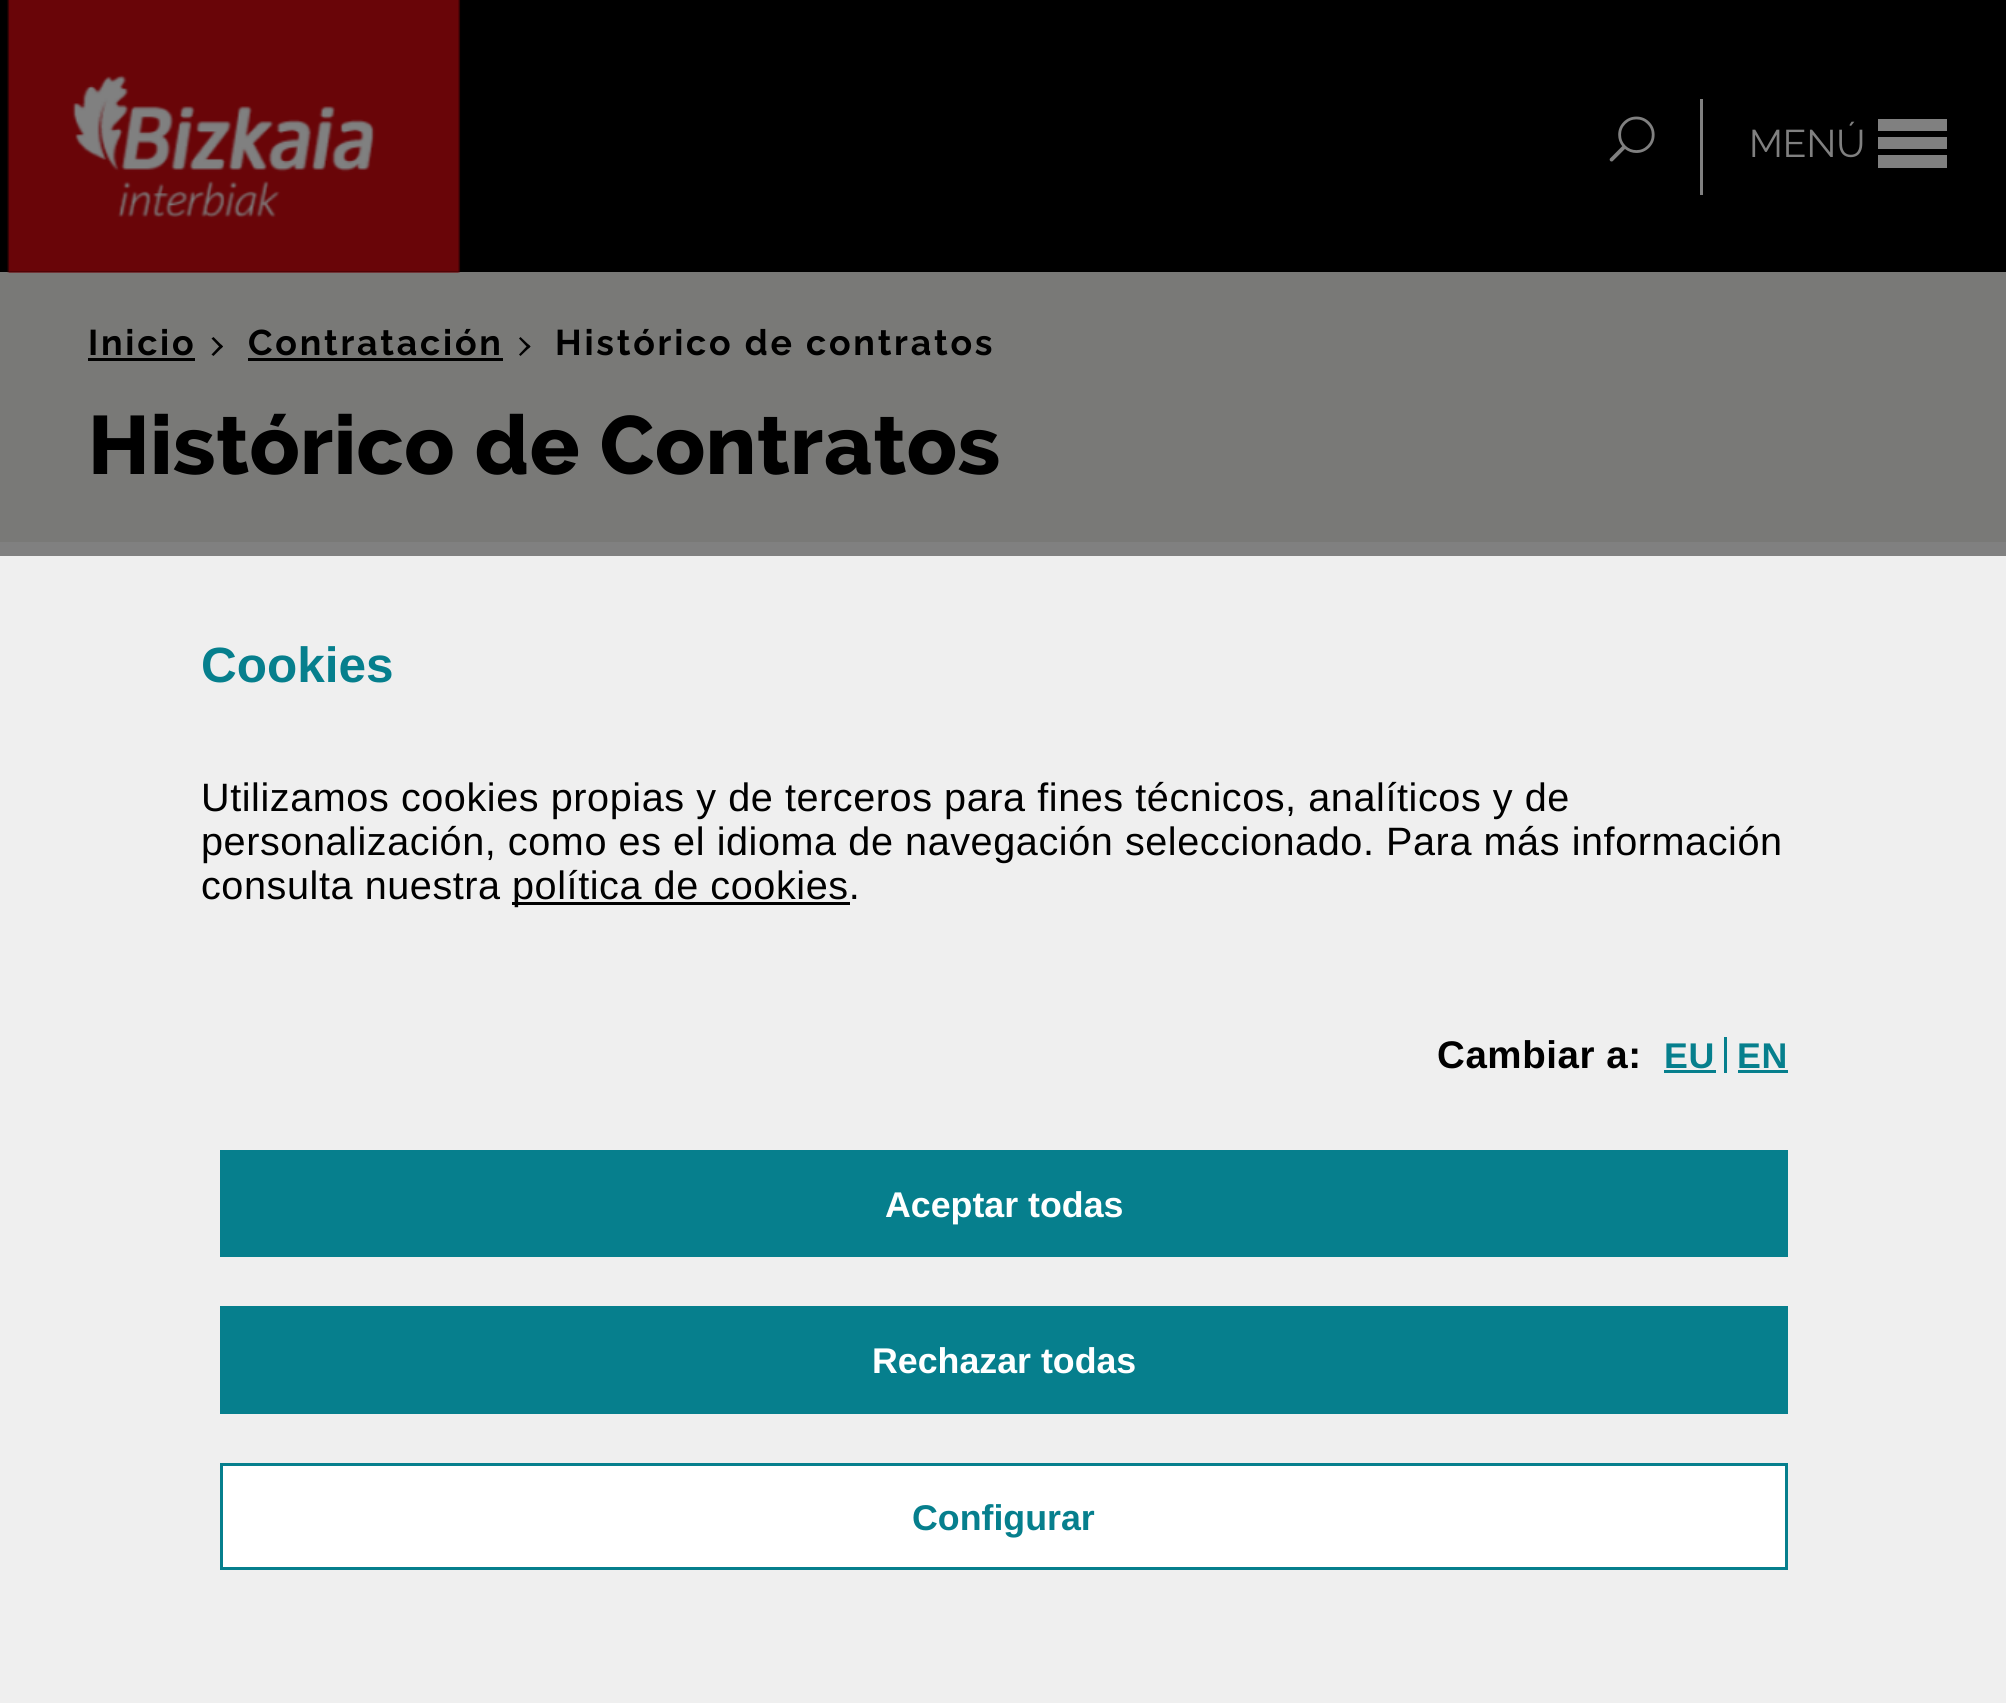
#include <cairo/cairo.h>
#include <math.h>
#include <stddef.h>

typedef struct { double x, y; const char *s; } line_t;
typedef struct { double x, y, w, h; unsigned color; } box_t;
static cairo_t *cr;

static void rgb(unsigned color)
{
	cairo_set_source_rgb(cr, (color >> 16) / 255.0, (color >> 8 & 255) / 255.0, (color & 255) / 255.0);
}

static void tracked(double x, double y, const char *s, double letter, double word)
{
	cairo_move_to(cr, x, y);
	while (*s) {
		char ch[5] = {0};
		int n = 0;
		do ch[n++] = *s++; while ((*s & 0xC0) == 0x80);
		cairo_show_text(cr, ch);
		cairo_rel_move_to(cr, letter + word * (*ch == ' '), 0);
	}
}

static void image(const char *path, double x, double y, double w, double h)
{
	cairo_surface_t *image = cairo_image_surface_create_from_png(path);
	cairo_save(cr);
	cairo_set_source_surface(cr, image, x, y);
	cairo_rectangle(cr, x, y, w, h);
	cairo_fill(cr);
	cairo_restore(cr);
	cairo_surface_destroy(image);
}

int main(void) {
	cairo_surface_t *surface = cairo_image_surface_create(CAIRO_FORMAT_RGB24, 2006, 1703);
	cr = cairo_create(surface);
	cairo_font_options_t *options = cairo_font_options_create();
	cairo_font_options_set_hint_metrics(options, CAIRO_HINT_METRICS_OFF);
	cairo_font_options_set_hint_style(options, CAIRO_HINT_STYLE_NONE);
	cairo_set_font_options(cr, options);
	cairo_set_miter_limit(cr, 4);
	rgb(0x808080);
	cairo_paint(cr);
	rgb(0x000000);
	cairo_rectangle(cr, 0, 0, 2006, 272);
	cairo_fill(cr);
	rgb(0x797977);
	cairo_rectangle(cr, 0, 272, 2006, 270);
	cairo_fill(cr);
	image("img/1.png", 7, 0, 454, 273);
	image("img/2.png", 1609, 116, 46, 46);
	rgb(0x808080);
	cairo_rectangle(cr, 1700, 99, 3, 96);
	cairo_fill(cr);
	cairo_new_path(cr);
	cairo_move_to(cr, 1878, 137);
	cairo_line_to(cr, 1947, 137);
	cairo_line_to(cr, 1947, 149);
	cairo_line_to(cr, 1878, 149);
	cairo_close_path(cr);
	cairo_move_to(cr, 1878, 155);
	cairo_line_to(cr, 1947, 155);
	cairo_line_to(cr, 1947, 168);
	cairo_line_to(cr, 1878, 168);
	cairo_close_path(cr);
	cairo_move_to(cr, 1878, 119);
	cairo_line_to(cr, 1947, 119);
	cairo_line_to(cr, 1947, 131);
	cairo_line_to(cr, 1878, 131);
	cairo_close_path(cr);
	cairo_fill(cr);
	rgb(0x000000);
	cairo_rectangle(cr, 88, 358, 107, 3);
	cairo_fill(cr);
	cairo_new_path(cr);
	cairo_move_to(cr, 211.5, 338.5);
	cairo_line_to(cr, 213.5, 337);
	cairo_line_to(cr, 223, 346.5);
	cairo_line_to(cr, 221, 348.5);
	cairo_close_path(cr);
	cairo_fill(cr);
	cairo_new_path(cr);
	cairo_move_to(cr, 211.5, 354.5);
	cairo_line_to(cr, 221, 344.5);
	cairo_line_to(cr, 223, 346.5);
	cairo_line_to(cr, 213.5, 356);
	cairo_close_path(cr);
	cairo_fill(cr);
	cairo_rectangle(cr, 248, 358, 255, 3);
	cairo_fill(cr);
	cairo_new_path(cr);
	cairo_move_to(cr, 519, 338.5);
	cairo_line_to(cr, 520.5, 337);
	cairo_line_to(cr, 530.5, 346.5);
	cairo_line_to(cr, 528.5, 348.5);
	cairo_close_path(cr);
	cairo_fill(cr);
	cairo_new_path(cr);
	cairo_move_to(cr, 519, 354.5);
	cairo_line_to(cr, 528.5, 344.5);
	cairo_line_to(cr, 530.5, 346.5);
	cairo_line_to(cr, 520.5, 356);
	cairo_close_path(cr);
	cairo_fill(cr);
	{
		static const box_t items[] = {
			{0, 556, 2006, 1147, 0xefefef},
			{512, 902, 338, 3, 0x000000},
			{1664, 1070, 52, 3, 0x067f8d},
			{1724, 1037, 3, 36, 0x067f8d},
			{1738, 1070, 50, 3, 0x067f8d},
			{220, 1150, 1568, 107, 0x067f8d},
			{220, 1306, 1568, 108, 0x067f8d},
		};
		for (size_t i = 0; i < sizeof items / sizeof *items; i++) {
			rgb(items[i].color);
			cairo_rectangle(cr, items[i].x, items[i].y, items[i].w, items[i].h);
			cairo_fill(cr);
		}
	}
	rgb(0xffffff);
	cairo_rectangle(cr, 221.5, 1464.5, 1565, 104);
	cairo_fill_preserve(cr);
	rgb(0x067f8d);
	cairo_set_line_width(cr, 3);
	cairo_stroke(cr);
	cairo_select_font_face(cr, "Raleway", CAIRO_FONT_SLANT_NORMAL, CAIRO_FONT_WEIGHT_NORMAL);
	cairo_set_font_size(cr, 38.5);
	rgb(0x808080);
	cairo_move_to(cr, 1749, 157);
	cairo_show_text(cr, "MENÚ");
	cairo_select_font_face(cr, "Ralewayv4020", CAIRO_FONT_SLANT_NORMAL, CAIRO_FONT_WEIGHT_BOLD);
	cairo_set_font_size(cr, 35.75);
	rgb(0x000000);
	{
		static const line_t items[] = {
			{88, 355, "Inicio"},
			{248, 355, "Contratación"},
			{555, 355, "Histórico de contratos"},
		};
		for (size_t i = 0; i < sizeof items / sizeof *items; i++) {
			tracked(items[i].x, items[i].y, items[i].s, 2.75, 0);
		}
	}
	cairo_select_font_face(cr, "Raleway ExtraBold", CAIRO_FONT_SLANT_NORMAL, CAIRO_FONT_WEIGHT_NORMAL);
	cairo_set_font_size(cr, 82.5);
	tracked(88, 474, "Histórico de Contratos", 0.55, 0);
	cairo_select_font_face(cr, "Liberation Sans", CAIRO_FONT_SLANT_NORMAL, CAIRO_FONT_WEIGHT_BOLD);
	cairo_set_font_size(cr, 49.5);
	rgb(0x067f8d);
	cairo_move_to(cr, 201, 682);
	cairo_show_text(cr, "Cookies");
	cairo_select_font_face(cr, "Liberation Sans", CAIRO_FONT_SLANT_NORMAL, CAIRO_FONT_WEIGHT_NORMAL);
	cairo_set_font_size(cr, 39.6);
	rgb(0x000000);
	{
		static const line_t items[] = {
			{201, 811, "Utilizamos cookies propias y de terceros para fines técnicos, analíticos y de"},
			{201, 855, "personalización, como es el idioma de navegación seleccionado. Para más información"},
			{201, 899, "consulta nuestra"},
			{512, 899, "política de cookies."},
		};
		for (size_t i = 0; i < sizeof items / sizeof *items; i++) {
			tracked(items[i].x, items[i].y, items[i].s, 0.57, 0);
		}
	}
	cairo_select_font_face(cr, "Liberation Sans", CAIRO_FONT_SLANT_NORMAL, CAIRO_FONT_WEIGHT_BOLD);
	cairo_set_font_size(cr, 38.5);
	tracked(1437, 1068, "Cambiar a:", 0.57, 0);
	cairo_set_font_size(cr, 35.75);
	rgb(0x067f8d);
	tracked(1664, 1068, "EU", 0.57, 0);
	tracked(1737, 1068, "EN", 0.57, 0);
	rgb(0xffffff);
	cairo_move_to(cr, 885, 1217);
	cairo_show_text(cr, "Aceptar todas");
	cairo_move_to(cr, 872, 1373);
	cairo_show_text(cr, "Rechazar todas");
	rgb(0x067f8d);
	cairo_move_to(cr, 912, 1530);
	cairo_show_text(cr, "Configurar");
	cairo_surface_write_to_png(surface, "page.png");
	cairo_font_options_destroy(options);
	cairo_destroy(cr);
	cairo_surface_destroy(surface);
	return 0;
}
